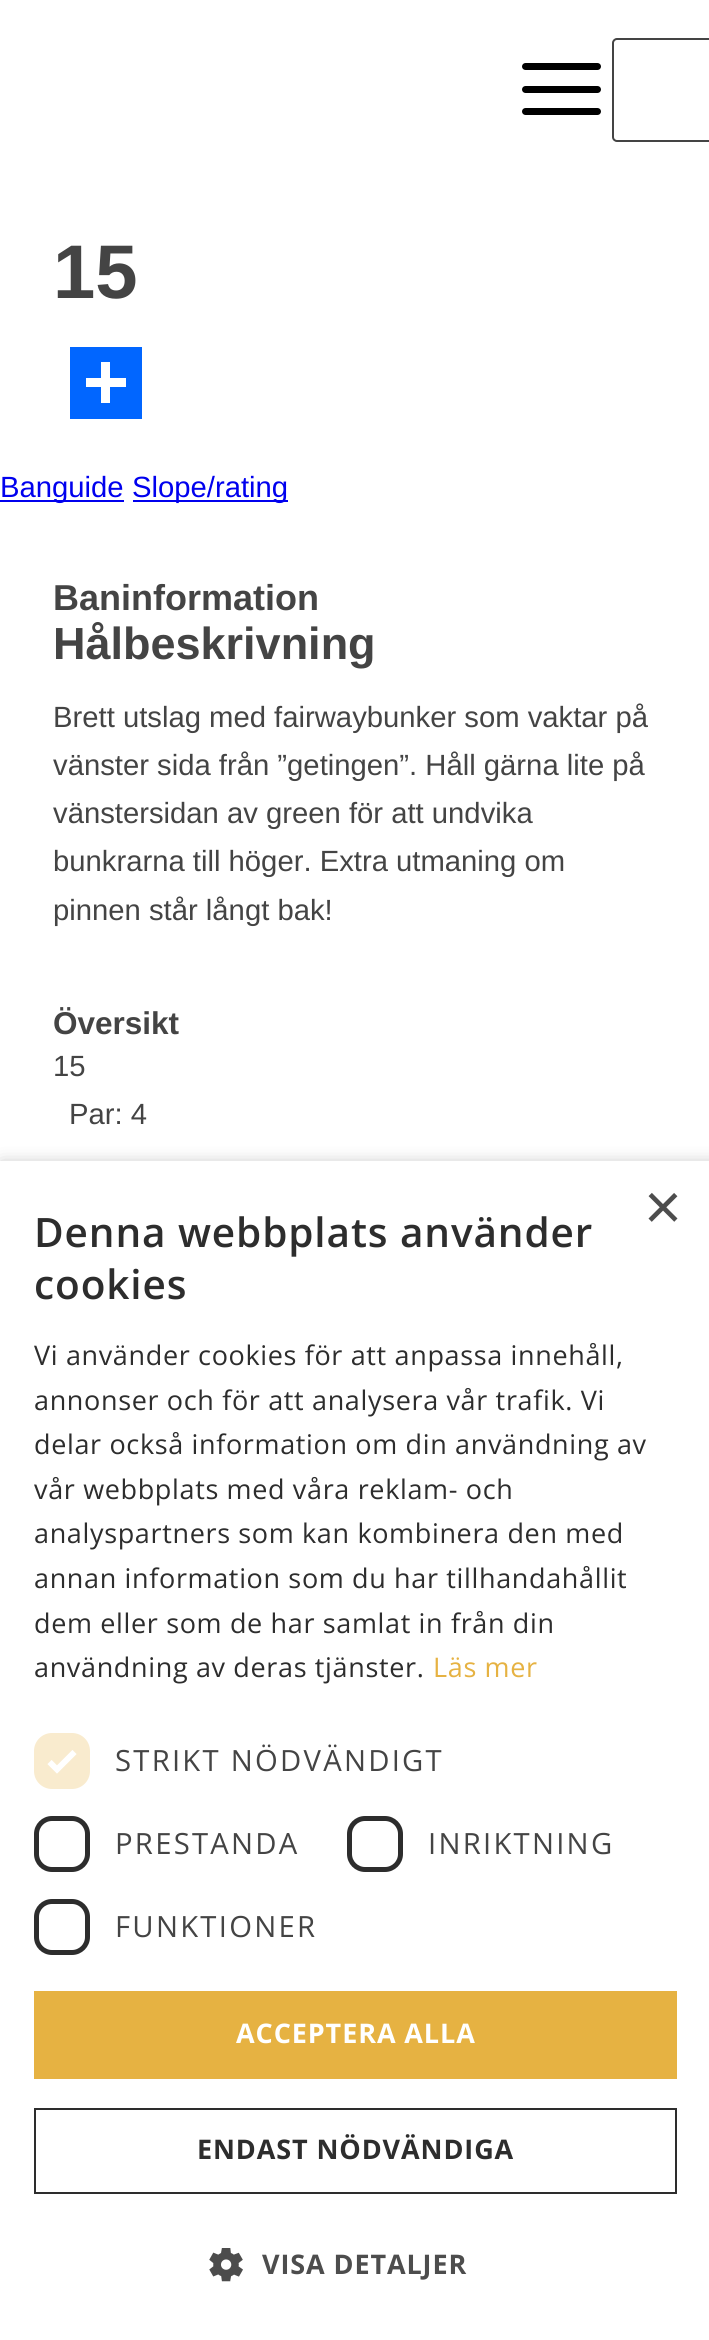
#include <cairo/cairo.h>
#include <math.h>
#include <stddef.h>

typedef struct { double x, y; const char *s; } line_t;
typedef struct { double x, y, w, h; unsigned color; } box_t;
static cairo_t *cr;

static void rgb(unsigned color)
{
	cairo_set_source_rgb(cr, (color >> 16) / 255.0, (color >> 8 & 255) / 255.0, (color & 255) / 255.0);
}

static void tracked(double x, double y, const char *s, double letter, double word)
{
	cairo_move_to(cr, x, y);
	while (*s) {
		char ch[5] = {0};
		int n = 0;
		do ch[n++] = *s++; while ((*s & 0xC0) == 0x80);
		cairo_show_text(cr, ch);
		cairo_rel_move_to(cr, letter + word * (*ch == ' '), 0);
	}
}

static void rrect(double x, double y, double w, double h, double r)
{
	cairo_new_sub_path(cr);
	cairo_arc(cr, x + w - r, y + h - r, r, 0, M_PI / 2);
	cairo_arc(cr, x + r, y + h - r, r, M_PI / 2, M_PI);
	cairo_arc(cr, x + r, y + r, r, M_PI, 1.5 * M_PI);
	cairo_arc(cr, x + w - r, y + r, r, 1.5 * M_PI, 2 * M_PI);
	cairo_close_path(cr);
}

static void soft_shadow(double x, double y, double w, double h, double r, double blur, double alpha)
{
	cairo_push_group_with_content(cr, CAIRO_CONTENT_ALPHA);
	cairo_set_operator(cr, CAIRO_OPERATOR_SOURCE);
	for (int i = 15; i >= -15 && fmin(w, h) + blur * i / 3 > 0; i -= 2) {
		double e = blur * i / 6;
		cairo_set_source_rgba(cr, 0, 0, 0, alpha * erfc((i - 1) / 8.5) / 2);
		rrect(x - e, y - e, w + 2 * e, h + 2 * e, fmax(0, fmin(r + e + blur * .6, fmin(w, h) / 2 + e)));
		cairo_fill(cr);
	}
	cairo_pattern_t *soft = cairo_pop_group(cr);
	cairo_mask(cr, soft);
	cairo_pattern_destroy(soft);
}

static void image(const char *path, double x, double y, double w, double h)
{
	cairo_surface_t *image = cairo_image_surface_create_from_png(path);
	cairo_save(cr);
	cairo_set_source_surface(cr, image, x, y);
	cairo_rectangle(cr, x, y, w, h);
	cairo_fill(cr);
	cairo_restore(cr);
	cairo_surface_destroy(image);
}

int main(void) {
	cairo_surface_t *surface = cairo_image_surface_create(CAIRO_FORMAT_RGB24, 709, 2340);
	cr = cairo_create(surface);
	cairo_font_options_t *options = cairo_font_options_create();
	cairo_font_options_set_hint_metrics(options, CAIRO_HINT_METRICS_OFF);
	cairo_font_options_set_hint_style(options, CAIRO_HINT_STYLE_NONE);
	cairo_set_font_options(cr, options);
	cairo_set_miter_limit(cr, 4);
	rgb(0xffffff);
	cairo_paint(cr);
	rgb(0x000000);
	rrect(522, 86, 79, 7, 3.5);
	cairo_fill(cr);
	rrect(522, 63, 79, 7, 3.5);
	cairo_fill(cr);
	rrect(522, 108, 79, 7, 3.5);
	cairo_fill(cr);
	rrect(613, 39, 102, 102, 4);
	rgb(0x444444);
	cairo_stroke(cr);
	{
		static const box_t items[] = {
			{70, 347, 72, 72, 0x0166ff},
			{101, 362, 9, 41, 0xffffff},
			{86, 378, 40, 9, 0xffffff},
			{0, 500, 124, 2, 0x0000ee},
			{133, 500, 155, 2, 0x0000ee},
		};
		for (size_t i = 0; i < sizeof items / sizeof *items; i++) {
			rgb(items[i].color);
			cairo_rectangle(cr, items[i].x, items[i].y, items[i].w, items[i].h);
			cairo_fill(cr);
		}
	}
	rgb(0x000000);
	soft_shadow(2, 1166, 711, 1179, 0, 9, 0.35);
	rgb(0xffffff);
	cairo_rectangle(cr, 0, 1161, 709, 1179);
	cairo_fill(cr);
	rgb(0xf9ebce);
	rrect(34, 1733, 56, 56, 18);
	cairo_fill(cr);
	cairo_new_path(cr);
	cairo_move_to(cr, 49.5, 1762);
	cairo_line_to(cr, 57, 1769.5);
	cairo_line_to(cr, 74.5, 1752);
	rgb(0xffffff);
	cairo_set_line_width(cr, 5.9);
	cairo_stroke(cr);
	rrect(36.5, 1818.5, 51, 51, 15.5);
	rgb(0x2d2d2d);
	cairo_set_line_width(cr, 5);
	cairo_stroke(cr);
	rrect(349.5, 1818.5, 51, 51, 15.5);
	cairo_stroke(cr);
	rrect(36.5, 1901.5, 51, 51, 15.5);
	cairo_stroke(cr);
	rgb(0xe6b242);
	cairo_rectangle(cr, 34, 1991, 643, 88);
	cairo_fill(cr);
	cairo_rectangle(cr, 35, 2109, 641, 84);
	rgb(0x2d2d2d);
	cairo_set_line_width(cr, 2);
	cairo_stroke(cr);
	image("img/1.png", 209, 2248, 34, 34);
	cairo_select_font_face(cr, "Liberation Sans", CAIRO_FONT_SLANT_NORMAL, CAIRO_FONT_WEIGHT_BOLD);
	cairo_set_font_size(cr, 76);
	rgb(0x444444);
	cairo_move_to(cr, 53, 298);
	cairo_show_text(cr, "15");
	cairo_select_font_face(cr, "Liberation Sans", CAIRO_FONT_SLANT_NORMAL, CAIRO_FONT_WEIGHT_NORMAL);
	cairo_set_font_size(cr, 29.25);
	rgb(0x0000ee);
	cairo_move_to(cr, 0, 497);
	cairo_show_text(cr, "Banguide");
	cairo_move_to(cr, 132, 497);
	cairo_show_text(cr, "Slope/rating");
	cairo_select_font_face(cr, "Liberation Sans", CAIRO_FONT_SLANT_NORMAL, CAIRO_FONT_WEIGHT_BOLD);
	cairo_set_font_size(cr, 36);
	rgb(0x444444);
	cairo_move_to(cr, 53, 610);
	cairo_show_text(cr, "Baninformation");
	cairo_set_font_size(cr, 45);
	cairo_move_to(cr, 53, 659);
	cairo_show_text(cr, "Hålbeskrivning");
	cairo_select_font_face(cr, "Liberation Sans", CAIRO_FONT_SLANT_NORMAL, CAIRO_FONT_WEIGHT_NORMAL);
	cairo_set_font_size(cr, 29.25);
	{
		static const line_t items[] = {
			{53, 727, "Brett utslag med fairwaybunker som vaktar på"},
			{53, 775, "vänster sida från ”getingen”. Håll gärna lite på"},
			{53, 823, "vänstersidan av green för att undvika"},
			{53, 871, "bunkrarna till höger. Extra utmaning om"},
			{53, 920, "pinnen står långt bak!"},
		};
		for (size_t i = 0; i < sizeof items / sizeof *items; i++) {
			cairo_move_to(cr, items[i].x, items[i].y);
			cairo_show_text(cr, items[i].s);
		}
	}
	cairo_select_font_face(cr, "Liberation Sans", CAIRO_FONT_SLANT_NORMAL, CAIRO_FONT_WEIGHT_BOLD);
	cairo_set_font_size(cr, 31.5);
	cairo_move_to(cr, 53, 1034);
	cairo_show_text(cr, "Översikt");
	cairo_select_font_face(cr, "Liberation Sans", CAIRO_FONT_SLANT_NORMAL, CAIRO_FONT_WEIGHT_NORMAL);
	cairo_set_font_size(cr, 29.25);
	cairo_move_to(cr, 53, 1076);
	cairo_show_text(cr, "15");
	cairo_move_to(cr, 69, 1124);
	cairo_show_text(cr, "Par: 4");
	cairo_set_font_size(cr, 65);
	rgb(0x4d4d4d);
	cairo_move_to(cr, 644, 1229);
	cairo_show_text(cr, "×");
	cairo_select_font_face(cr, "Open Sans SemiBold", CAIRO_FONT_SLANT_NORMAL, CAIRO_FONT_WEIGHT_NORMAL);
	cairo_set_font_size(cr, 40.5);
	rgb(0x2d2d2d);
	tracked(34, 1247, "Denna webbplats använder", 0.9, 0);
	tracked(34, 1299, "cookies", 0.9, 0);
	cairo_select_font_face(cr, "Open Sans", CAIRO_FONT_SLANT_NORMAL, CAIRO_FONT_WEIGHT_NORMAL);
	cairo_set_font_size(cr, 27);
	{
		static const line_t items[] = {
			{34, 1365, "Vi använder cookies för att anpassa innehåll,"},
			{34, 1410, "annonser och för att analysera vår trafik. Vi"},
			{34, 1454, "delar också information om din användning av"},
			{34, 1499, "vår webbplats med våra reklam- och"},
			{34, 1543, "analyspartners som kan kombinera den med"},
			{34, 1588, "annan information som du har tillhandahållit"},
			{34, 1633, "dem eller som de har samlat in från din"},
			{34, 1677, "användning av deras tjänster."},
		};
		for (size_t i = 0; i < sizeof items / sizeof *items; i++) {
			tracked(items[i].x, items[i].y, items[i].s, 0.65, 0);
		}
	}
	rgb(0xe6b242);
	tracked(433, 1677, "Läs mer", 0.65, 0);
	cairo_set_font_size(cr, 29.25);
	rgb(0x444444);
	{
		static const line_t items[] = {
			{115, 1771, "STRIKT NÖDVÄNDIGT"},
			{115, 1854, "PRESTANDA"},
			{428, 1854, "INRIKTNING"},
			{115, 1937, "FUNKTIONER"},
		};
		for (size_t i = 0; i < sizeof items / sizeof *items; i++) {
			tracked(items[i].x, items[i].y, items[i].s, 2.25, 0);
		}
	}
	cairo_select_font_face(cr, "Open Sans", CAIRO_FONT_SLANT_NORMAL, CAIRO_FONT_WEIGHT_BOLD);
	cairo_set_font_size(cr, 27);
	rgb(0xffffff);
	tracked(236, 2043, "ACCEPTERA ALLA", 0.9, 0);
	rgb(0x2d2d2d);
	tracked(197, 2159, "ENDAST NÖDVÄNDIGA", 0.9, 0);
	rgb(0x4d4d4d);
	tracked(262, 2274, "VISA DETALJER", 0.9, 0);
	cairo_surface_write_to_png(surface, "page.png");
	cairo_font_options_destroy(options);
	cairo_destroy(cr);
	cairo_surface_destroy(surface);
	return 0;
}
